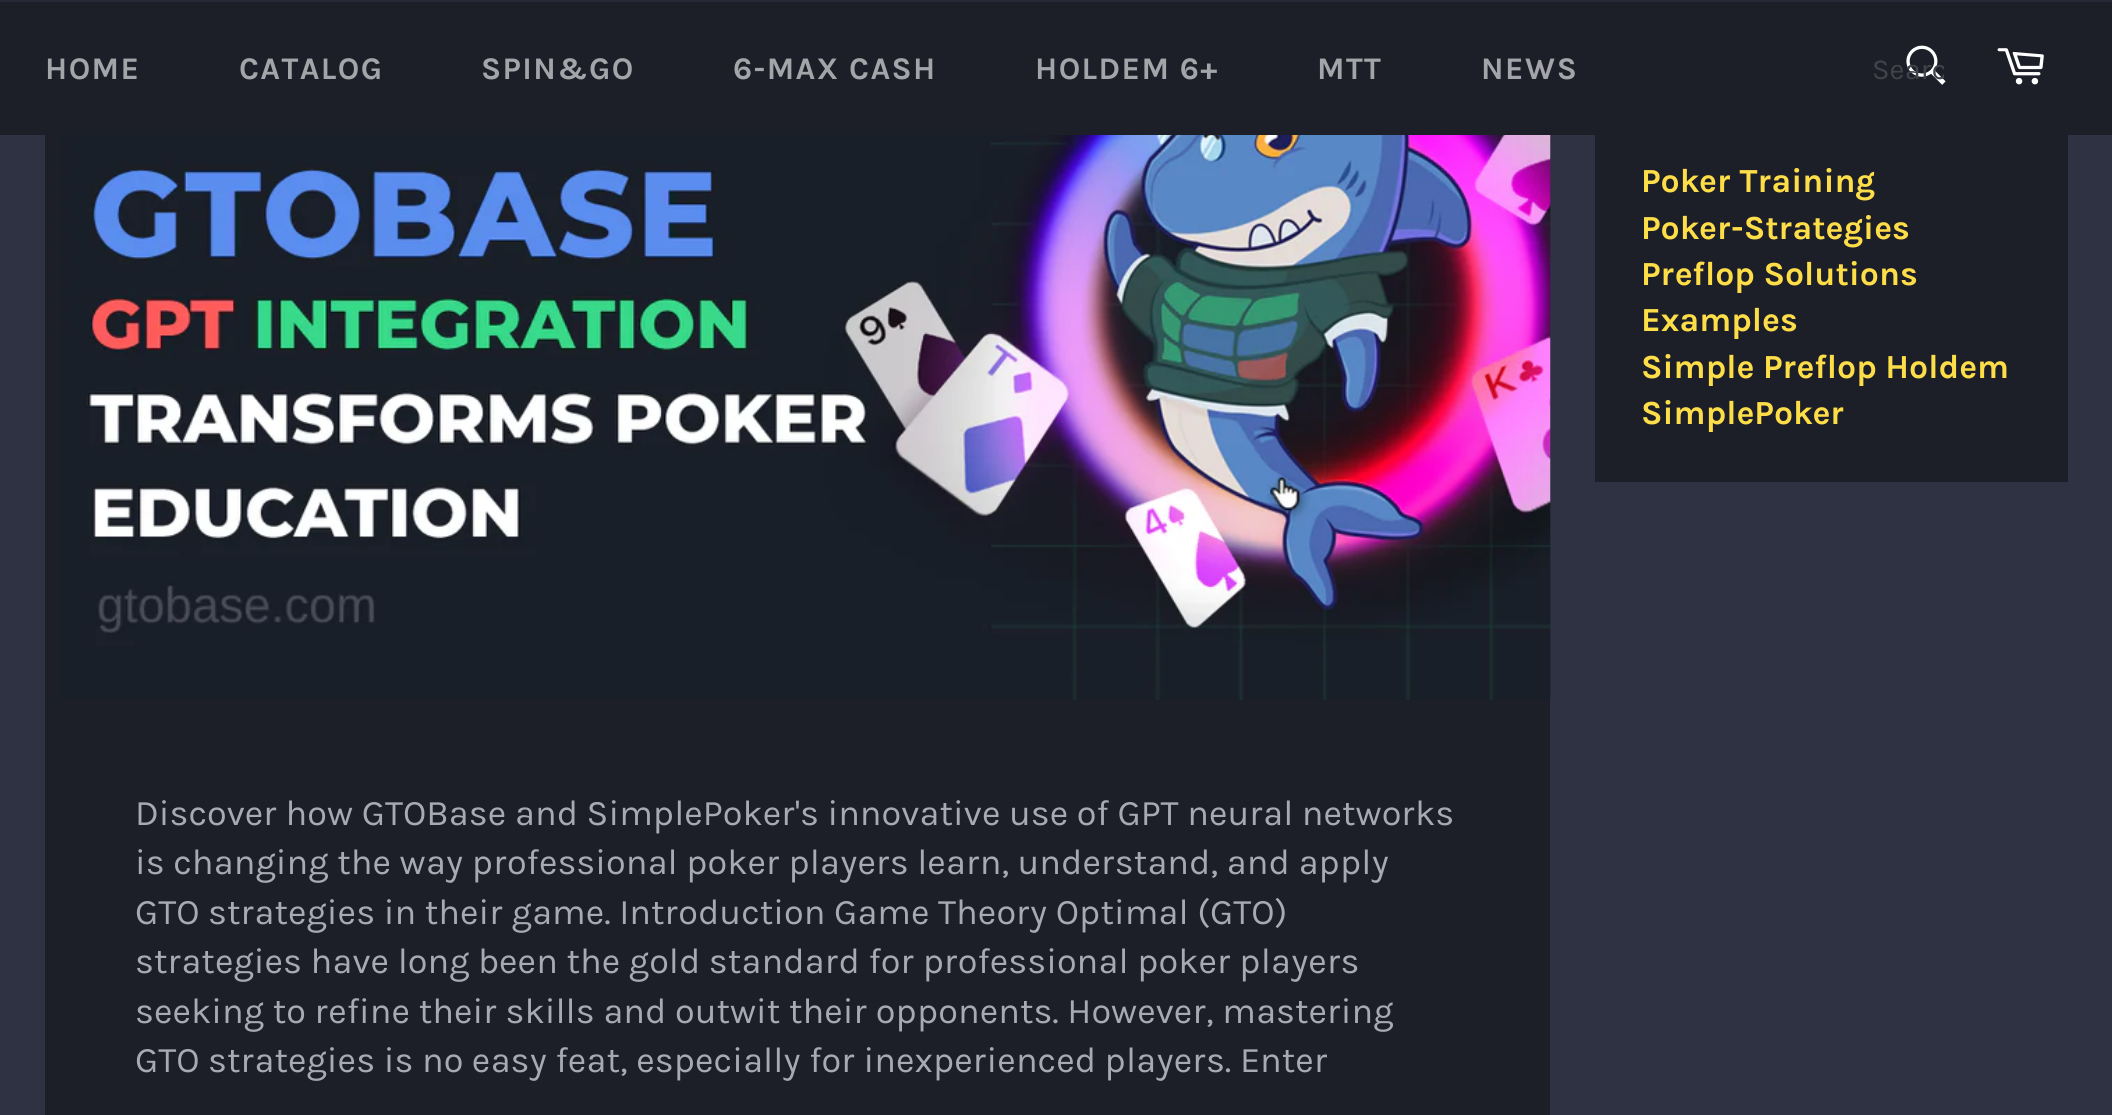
#include <cairo/cairo.h>
#include <math.h>
#include <stddef.h>

typedef struct { double x, y; const char *s; } line_t;
static cairo_t *cr;

static void rgb(unsigned color)
{
	cairo_set_source_rgb(cr, (color >> 16) / 255.0, (color >> 8 & 255) / 255.0, (color & 255) / 255.0);
}

static void tracked(double x, double y, const char *s, double letter, double word)
{
	cairo_move_to(cr, x, y);
	while (*s) {
		char ch[5] = {0};
		int n = 0;
		do ch[n++] = *s++; while ((*s & 0xC0) == 0x80);
		cairo_show_text(cr, ch);
		cairo_rel_move_to(cr, letter + word * (*ch == ' '), 0);
	}
}

static void image(const char *path, double x, double y, double w, double h)
{
	cairo_surface_t *image = cairo_image_surface_create_from_png(path);
	cairo_save(cr);
	cairo_set_source_surface(cr, image, x, y);
	cairo_rectangle(cr, x, y, w, h);
	cairo_fill(cr);
	cairo_restore(cr);
	cairo_surface_destroy(image);
}

int main(void) {
	cairo_surface_t *surface = cairo_image_surface_create(CAIRO_FORMAT_RGB24, 2112, 1115);
	cr = cairo_create(surface);
	cairo_font_options_t *options = cairo_font_options_create();
	cairo_font_options_set_hint_metrics(options, CAIRO_HINT_METRICS_OFF);
	cairo_font_options_set_hint_style(options, CAIRO_HINT_STYLE_NONE);
	cairo_set_font_options(cr, options);
	cairo_set_miter_limit(cr, 4);
	rgb(0x2f3242);
	cairo_paint(cr);
	rgb(0x1c1e28);
	cairo_rectangle(cr, 0, 2, 2112, 133);
	cairo_fill(cr);
	rgb(0x272937);
	cairo_rectangle(cr, 0, 0, 2112, 2);
	cairo_fill(cr);
	image("img/1.png", 1906, 45, 40, 40);
	image("img/2.png", 1997, 48, 47, 37);
	rgb(0x1c1e28);
	cairo_rectangle(cr, 1595, 135, 473, 347);
	cairo_fill(cr);
	cairo_rectangle(cr, 45, 135, 1505, 980);
	cairo_fill(cr);
	image("img/3.png", 60, 135, 1491, 565);
	cairo_select_font_face(cr, "Karla", CAIRO_FONT_SLANT_NORMAL, CAIRO_FONT_WEIGHT_BOLD);
	cairo_set_font_size(cr, 31.5);
	rgb(0xa4a5a9);
	{
		static const line_t items[] = {
			{45, 79, "HOME"},
			{239, 79, "CATALOG"},
			{481, 79, "SPIN&GO"},
			{733, 79, "6-MAX CASH"},
			{1035, 79, "HOLDEM 6+"},
			{1317, 79, "MTT"},
			{1481, 79, "NEWS"},
		};
		for (size_t i = 0; i < sizeof items / sizeof *items; i++) {
			tracked(items[i].x, items[i].y, items[i].s, 1.4, 0);
		}
	}
	cairo_save(cr);
	cairo_rectangle(cr, 1872, 52, 72, 34);
	cairo_clip(cr);
	cairo_select_font_face(cr, "Karla", CAIRO_FONT_SLANT_NORMAL, CAIRO_FONT_WEIGHT_NORMAL);
	cairo_set_font_size(cr, 29);
	rgb(0x41434b);
	cairo_move_to(cr, 1872, 79);
	cairo_show_text(cr, "Searc");
	cairo_restore(cr);
	cairo_set_font_size(cr, 33.75);
	rgb(0xfddd48);
	{
		static const line_t items[] = {
			{1641, 192, "Poker Training"},
			{1641, 239, "Poker-Strategies"},
			{1641, 285, "Preflop Solutions"},
			{1641, 331, "Examples"},
			{1641, 378, "Simple Preflop Holdem"},
			{1641, 424, "SimplePoker"},
		};
		for (size_t i = 0; i < sizeof items / sizeof *items; i++) {
			cairo_move_to(cr, items[i].x, items[i].y);
			cairo_show_text(cr, items[i].s);
		}
	}
	cairo_select_font_face(cr, "Karla", CAIRO_FONT_SLANT_NORMAL, CAIRO_FONT_WEIGHT_NORMAL);
	cairo_set_font_size(cr, 36);
	rgb(0xa7a9b4);
	{
		static const line_t items[] = {
			{135, 825, "Discover how GTOBase and SimplePoker's innovative use of GPT neural networks"},
			{135, 874, "is changing the way professional poker players learn, understand, and apply"},
			{135, 924, "GTO strategies in their game. Introduction Game Theory Optimal (GTO)"},
			{135, 973, "strategies have long been the gold standard for professional poker players"},
			{135, 1023, "seeking to refine their skills and outwit their opponents. However, mastering"},
			{135, 1072, "GTO strategies is no easy feat, especially for inexperienced players. Enter"},
		};
		for (size_t i = 0; i < sizeof items / sizeof *items; i++) {
			cairo_move_to(cr, items[i].x, items[i].y);
			cairo_show_text(cr, items[i].s);
		}
	}
	cairo_surface_write_to_png(surface, "page.png");
	cairo_font_options_destroy(options);
	cairo_destroy(cr);
	cairo_surface_destroy(surface);
	return 0;
}
